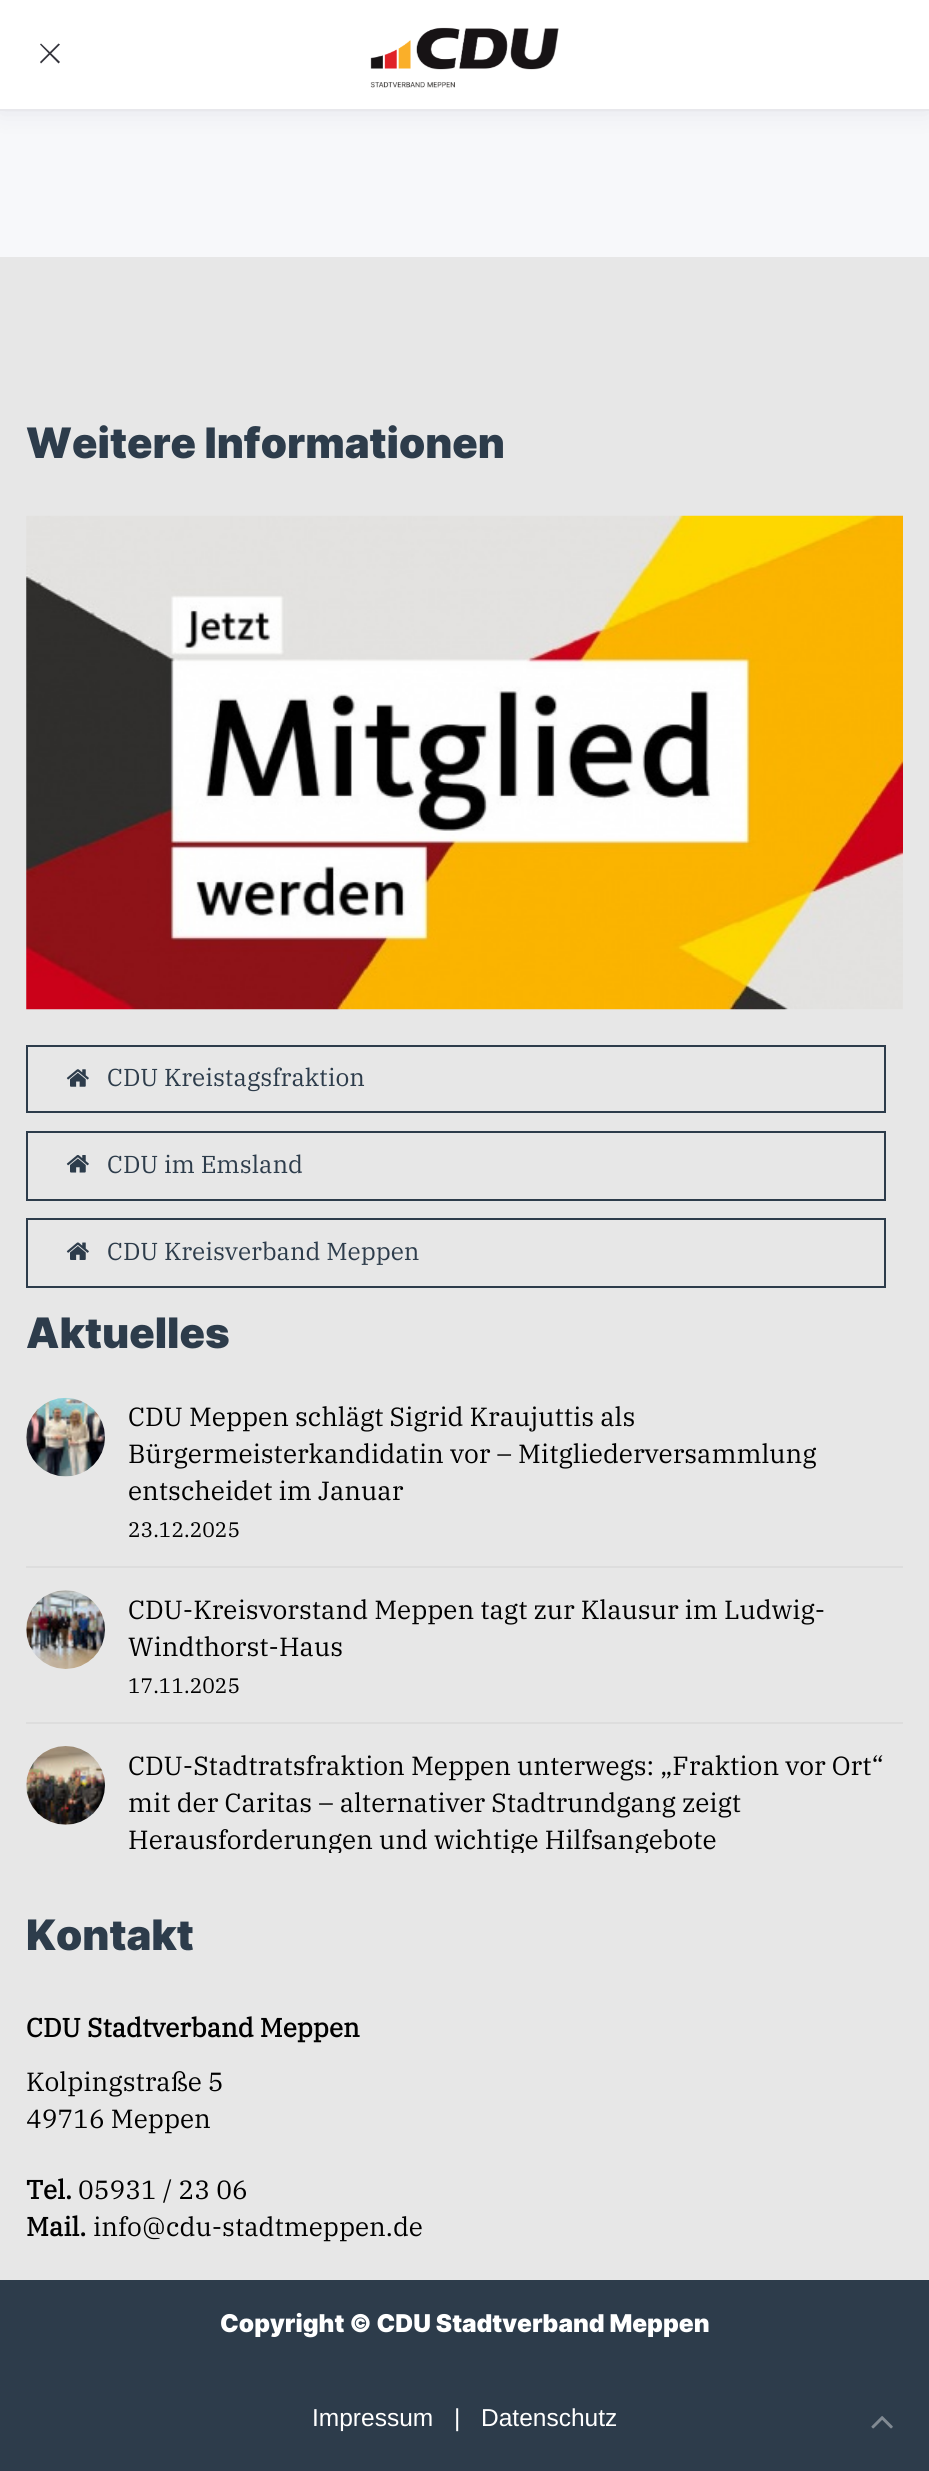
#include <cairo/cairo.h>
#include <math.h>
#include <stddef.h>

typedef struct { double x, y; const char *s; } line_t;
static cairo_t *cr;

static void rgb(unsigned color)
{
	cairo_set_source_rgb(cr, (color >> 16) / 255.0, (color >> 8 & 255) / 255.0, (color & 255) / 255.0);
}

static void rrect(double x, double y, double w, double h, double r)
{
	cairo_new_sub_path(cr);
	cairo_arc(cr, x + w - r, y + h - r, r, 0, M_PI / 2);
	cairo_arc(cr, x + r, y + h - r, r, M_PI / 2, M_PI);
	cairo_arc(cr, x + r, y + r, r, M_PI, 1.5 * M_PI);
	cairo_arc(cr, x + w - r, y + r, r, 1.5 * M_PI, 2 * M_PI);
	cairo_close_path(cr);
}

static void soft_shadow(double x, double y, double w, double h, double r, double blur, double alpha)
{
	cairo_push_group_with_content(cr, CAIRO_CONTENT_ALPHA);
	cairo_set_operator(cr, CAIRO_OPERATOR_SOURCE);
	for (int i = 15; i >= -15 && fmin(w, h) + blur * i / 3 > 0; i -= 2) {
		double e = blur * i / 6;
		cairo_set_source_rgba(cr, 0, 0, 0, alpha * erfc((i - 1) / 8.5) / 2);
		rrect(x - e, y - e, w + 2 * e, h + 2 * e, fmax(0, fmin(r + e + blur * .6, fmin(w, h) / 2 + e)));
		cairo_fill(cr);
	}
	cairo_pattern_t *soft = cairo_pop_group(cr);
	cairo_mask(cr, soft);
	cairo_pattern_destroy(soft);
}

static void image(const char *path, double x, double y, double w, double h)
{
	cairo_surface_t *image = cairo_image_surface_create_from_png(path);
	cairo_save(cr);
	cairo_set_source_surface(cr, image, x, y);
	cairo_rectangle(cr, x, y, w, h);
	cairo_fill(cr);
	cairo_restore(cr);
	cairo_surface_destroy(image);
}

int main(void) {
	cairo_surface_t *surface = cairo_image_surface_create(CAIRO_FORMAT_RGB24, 929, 2471);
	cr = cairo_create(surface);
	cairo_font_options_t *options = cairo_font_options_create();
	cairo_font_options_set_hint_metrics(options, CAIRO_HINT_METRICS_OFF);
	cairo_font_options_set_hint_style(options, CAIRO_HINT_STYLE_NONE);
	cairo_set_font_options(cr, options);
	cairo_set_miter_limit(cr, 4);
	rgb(0xf7f8fa);
	cairo_paint(cr);
	rgb(0x000032);
	soft_shadow(0, 0, 929, 110, 0, 13, 0.09);
	rgb(0xffffff);
	cairo_rectangle(cr, 0, 0, 929, 109);
	cairo_fill(cr);
	rgb(0xe8e8ec);
	cairo_rectangle(cr, 0, 109, 929, 2);
	cairo_fill(cr);
	rgb(0x34343c);
	cairo_new_path(cr);
	cairo_move_to(cr, 41, 43.5);
	cairo_line_to(cr, 60, 62);
	cairo_line_to(cr, 58.5, 63.5);
	cairo_line_to(cr, 40, 44.5);
	cairo_close_path(cr);
	cairo_fill(cr);
	cairo_new_path(cr);
	cairo_move_to(cr, 40, 62);
	cairo_line_to(cr, 58.5, 43.5);
	cairo_line_to(cr, 60, 44.5);
	cairo_line_to(cr, 41, 63.5);
	cairo_close_path(cr);
	cairo_fill(cr);
	image("img/1.png", 370, 27, 189, 61);
	rgb(0xe7e7e7);
	cairo_rectangle(cr, 0, 257, 929, 2023);
	cairo_fill(cr);
	image("img/2.png", 26, 515, 877, 495);
	cairo_rectangle(cr, 27, 1046, 858, 66);
	rgb(0x2d3c4b);
	cairo_stroke(cr);
	image("img/3.png", 66, 1069, 23, 18);
	cairo_rectangle(cr, 27, 1132, 858, 68);
	cairo_stroke(cr);
	image("img/4.png", 66, 1155, 23, 18);
	cairo_rectangle(cr, 27, 1219, 858, 68);
	cairo_stroke(cr);
	image("img/5.png", 66, 1242, 23, 18);
	rgb(0xdddddd);
	cairo_rectangle(cr, 26, 1566, 877, 2);
	cairo_fill(cr);
	image("img/6.png", 26, 1397, 79, 80);
	cairo_rectangle(cr, 26, 1722, 877, 2);
	cairo_fill(cr);
	image("img/7.png", 26, 1590, 79, 79);
	image("img/8.png", 26, 1746, 79, 79);
	rgb(0x2d3c4b);
	cairo_rectangle(cr, 0, 2280, 929, 191);
	cairo_fill(cr);
	image("img/9.png", 871, 2416, 22, 13);
	cairo_select_font_face(cr, "Inter Black", CAIRO_FONT_SLANT_NORMAL, CAIRO_FONT_WEIGHT_NORMAL);
	cairo_set_font_size(cr, 42);
	cairo_move_to(cr, 26, 458);
	cairo_show_text(cr, "Weitere Informationen");
	cairo_select_font_face(cr, "IBM Plex Serif", CAIRO_FONT_SLANT_NORMAL, CAIRO_FONT_WEIGHT_NORMAL);
	cairo_set_font_size(cr, 24.5);
	{
		static const line_t items[] = {
			{107, 1086, "CDU Kreistagsfraktion"},
			{107, 1173, "CDU im Emsland"},
			{107, 1260, "CDU Kreisverband Meppen"},
		};
		for (size_t i = 0; i < sizeof items / sizeof *items; i++) {
			cairo_move_to(cr, items[i].x, items[i].y);
			cairo_show_text(cr, items[i].s);
		}
	}
	cairo_select_font_face(cr, "Inter Black", CAIRO_FONT_SLANT_NORMAL, CAIRO_FONT_WEIGHT_NORMAL);
	cairo_set_font_size(cr, 42);
	cairo_move_to(cr, 26, 1348);
	cairo_show_text(cr, "Aktuelles");
	cairo_select_font_face(cr, "IBM Plex Serif", CAIRO_FONT_SLANT_NORMAL, CAIRO_FONT_WEIGHT_NORMAL);
	cairo_set_font_size(cr, 26.25);
	rgb(0x000000);
	{
		static const line_t items[] = {
			{128, 1426, "CDU Meppen schlägt Sigrid Kraujuttis als"},
			{128, 1463, "Bürgermeisterkandidatin vor – Mitgliederversammlung"},
			{128, 1500, "entscheidet im Januar"},
		};
		for (size_t i = 0; i < sizeof items / sizeof *items; i++) {
			cairo_move_to(cr, items[i].x, items[i].y);
			cairo_show_text(cr, items[i].s);
		}
	}
	cairo_set_font_size(cr, 21);
	cairo_move_to(cr, 128, 1537);
	cairo_show_text(cr, "23.12.2025");
	cairo_set_font_size(cr, 26.25);
	cairo_move_to(cr, 128, 1619);
	cairo_show_text(cr, "CDU-Kreisvorstand Meppen tagt zur Klausur im Ludwig-");
	cairo_move_to(cr, 128, 1656);
	cairo_show_text(cr, "Windthorst-Haus");
	cairo_set_font_size(cr, 21);
	cairo_move_to(cr, 128, 1693);
	cairo_show_text(cr, "17.11.2025");
	cairo_set_font_size(cr, 26.25);
	cairo_move_to(cr, 128, 1775);
	cairo_show_text(cr, "CDU-Stadtratsfraktion Meppen unterwegs: „Fraktion vor Ort“");
	cairo_move_to(cr, 128, 1812);
	cairo_show_text(cr, "mit der Caritas – alternativer Stadtrundgang zeigt");
	cairo_save(cr);
	cairo_rectangle(cr, 128, 1747, 775, 106);
	cairo_clip(cr);
	cairo_move_to(cr, 128, 1849);
	cairo_show_text(cr, "Herausforderungen und wichtige Hilfsangebote");
	cairo_restore(cr);
	cairo_select_font_face(cr, "Inter Black", CAIRO_FONT_SLANT_NORMAL, CAIRO_FONT_WEIGHT_NORMAL);
	cairo_set_font_size(cr, 42);
	rgb(0x2d3c4b);
	cairo_move_to(cr, 26, 1950);
	cairo_show_text(cr, "Kontakt");
	cairo_select_font_face(cr, "IBM Plex Serif", CAIRO_FONT_SLANT_NORMAL, CAIRO_FONT_WEIGHT_BOLD);
	cairo_set_font_size(cr, 26.25);
	rgb(0x000000);
	cairo_move_to(cr, 26, 2037);
	cairo_show_text(cr, "CDU Stadtverband Meppen");
	cairo_select_font_face(cr, "IBM Plex Serif", CAIRO_FONT_SLANT_NORMAL, CAIRO_FONT_WEIGHT_NORMAL);
	cairo_move_to(cr, 26, 2091);
	cairo_show_text(cr, "Kolpingstraße 5");
	cairo_move_to(cr, 26, 2128);
	cairo_show_text(cr, "49716 Meppen");
	cairo_select_font_face(cr, "IBM Plex Serif", CAIRO_FONT_SLANT_NORMAL, CAIRO_FONT_WEIGHT_BOLD);
	cairo_move_to(cr, 26, 2199);
	cairo_show_text(cr, "Tel.");
	cairo_select_font_face(cr, "IBM Plex Serif", CAIRO_FONT_SLANT_NORMAL, CAIRO_FONT_WEIGHT_NORMAL);
	cairo_move_to(cr, 78, 2199);
	cairo_show_text(cr, "05931 / 23 06");
	cairo_select_font_face(cr, "IBM Plex Serif", CAIRO_FONT_SLANT_NORMAL, CAIRO_FONT_WEIGHT_BOLD);
	cairo_move_to(cr, 26, 2236);
	cairo_show_text(cr, "Mail.");
	cairo_select_font_face(cr, "IBM Plex Serif", CAIRO_FONT_SLANT_NORMAL, CAIRO_FONT_WEIGHT_NORMAL);
	cairo_move_to(cr, 93, 2236);
	cairo_show_text(cr, "info@cdu-stadtmeppen.de");
	cairo_select_font_face(cr, "Inter Black", CAIRO_FONT_SLANT_NORMAL, CAIRO_FONT_WEIGHT_NORMAL);
	cairo_set_font_size(cr, 24.5);
	rgb(0xffffff);
	cairo_move_to(cr, 220, 2332);
	cairo_show_text(cr, "Copyright © CDU Stadtverband Meppen");
	cairo_select_font_face(cr, "Liberation Sans", CAIRO_FONT_SLANT_NORMAL, CAIRO_FONT_WEIGHT_NORMAL);
	{
		static const line_t items[] = {
			{312, 2426, "Impressum"},
			{454, 2426, "|"},
			{481, 2426, "Datenschutz"},
		};
		for (size_t i = 0; i < sizeof items / sizeof *items; i++) {
			cairo_move_to(cr, items[i].x, items[i].y);
			cairo_show_text(cr, items[i].s);
		}
	}
	cairo_surface_write_to_png(surface, "page.png");
	cairo_font_options_destroy(options);
	cairo_destroy(cr);
	cairo_surface_destroy(surface);
	return 0;
}
